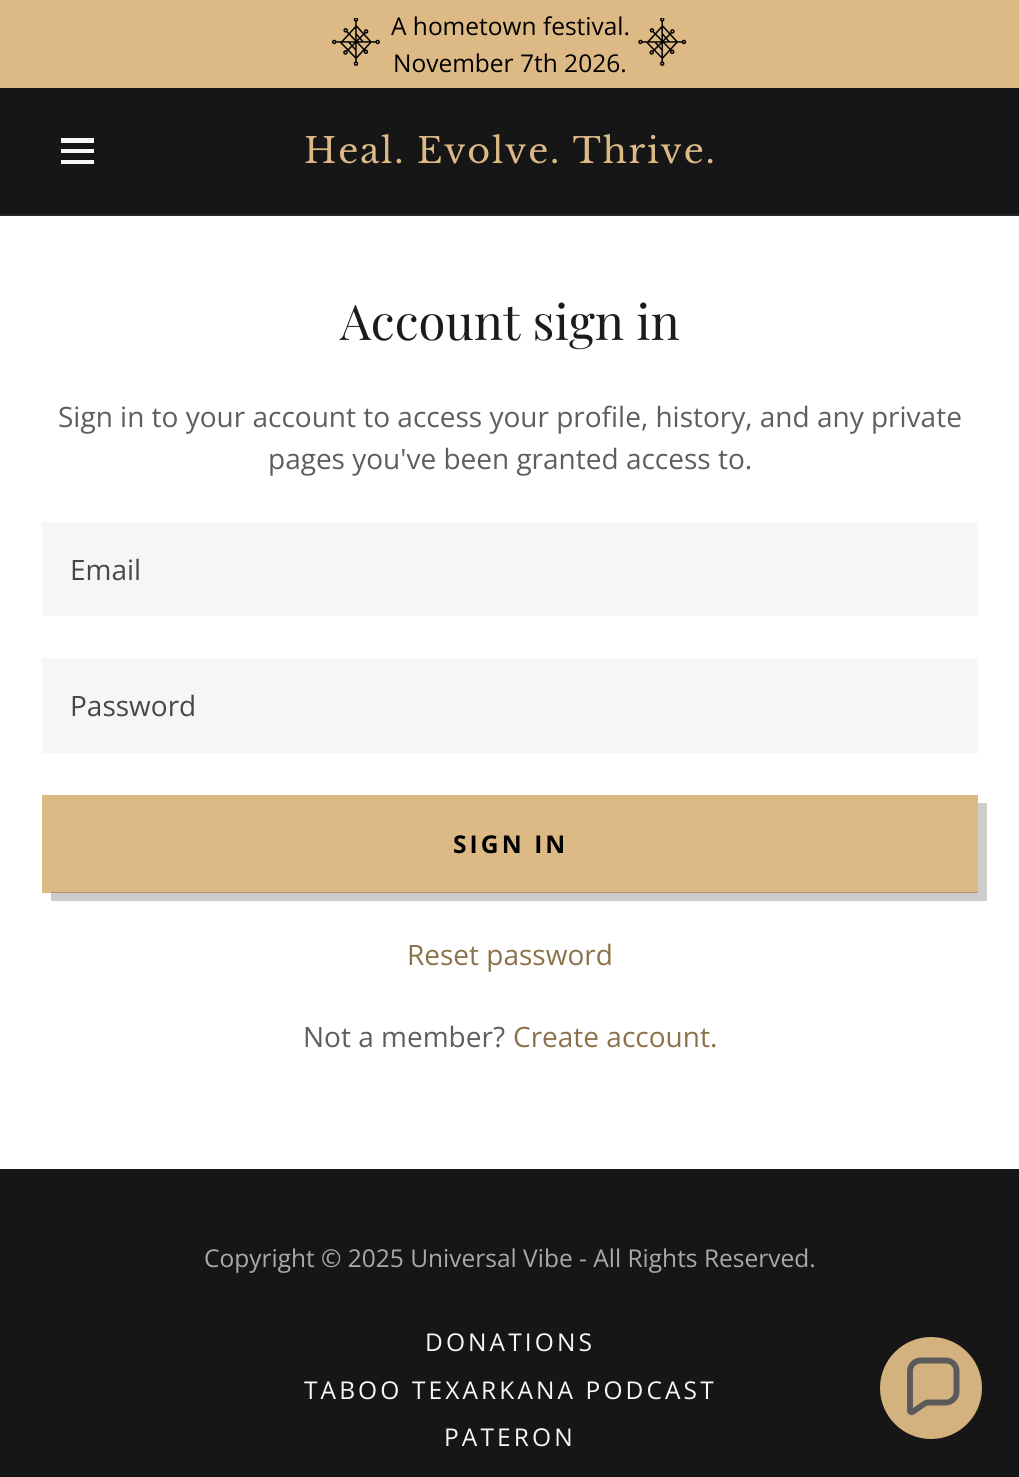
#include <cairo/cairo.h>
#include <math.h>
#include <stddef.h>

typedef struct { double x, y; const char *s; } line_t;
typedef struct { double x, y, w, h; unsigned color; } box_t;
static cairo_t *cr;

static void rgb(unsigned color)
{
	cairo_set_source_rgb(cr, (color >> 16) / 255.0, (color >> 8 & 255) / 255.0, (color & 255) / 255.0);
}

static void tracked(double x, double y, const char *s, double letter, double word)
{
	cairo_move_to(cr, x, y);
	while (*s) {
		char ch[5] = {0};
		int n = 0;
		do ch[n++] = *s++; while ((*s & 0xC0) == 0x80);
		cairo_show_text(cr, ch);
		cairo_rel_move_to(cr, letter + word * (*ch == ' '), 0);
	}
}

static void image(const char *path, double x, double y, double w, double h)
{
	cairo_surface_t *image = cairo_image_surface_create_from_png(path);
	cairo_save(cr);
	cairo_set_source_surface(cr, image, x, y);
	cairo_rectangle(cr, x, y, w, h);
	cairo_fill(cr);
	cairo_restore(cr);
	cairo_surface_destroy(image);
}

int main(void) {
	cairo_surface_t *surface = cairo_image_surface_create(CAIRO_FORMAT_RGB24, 1019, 1477);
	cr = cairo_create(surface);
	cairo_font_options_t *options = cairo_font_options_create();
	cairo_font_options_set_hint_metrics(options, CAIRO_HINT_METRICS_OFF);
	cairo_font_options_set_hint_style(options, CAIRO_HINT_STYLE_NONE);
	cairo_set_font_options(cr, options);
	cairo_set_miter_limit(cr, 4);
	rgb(0x161616);
	cairo_paint(cr);
	rgb(0xddba85);
	cairo_rectangle(cr, 0, 0, 1019, 88);
	cairo_fill(cr);
	image("img/1.png", 332, 18, 48, 48);
	image("img/2.png", 638, 18, 49, 48);
	{
		static const box_t items[] = {
			{61, 138, 33, 5, 0xf7f7f7},
			{61, 149, 33, 4, 0xf7f7f7},
			{61, 160, 33, 4, 0xf7f7f7},
			{0, 214, 1019, 2, 0x2a2a2a},
			{0, 216, 1019, 953, 0xffffff},
			{42, 522, 936, 94, 0xf6f6f6},
			{42, 658, 936, 95, 0xf6f6f6},
			{42, 795, 936, 98, 0xddba85},
		};
		for (size_t i = 0; i < sizeof items / sizeof *items; i++) {
			rgb(items[i].color);
			cairo_rectangle(cr, items[i].x, items[i].y, items[i].w, items[i].h);
			cairo_fill(cr);
		}
	}
	cairo_set_source_rgba(cr, 0, 0, 0, 0.2);
	cairo_new_path(cr);
	cairo_move_to(cr, 51, 892);
	cairo_line_to(cr, 51, 901);
	cairo_line_to(cr, 987, 901);
	cairo_line_to(cr, 987, 803);
	cairo_line_to(cr, 978, 803);
	cairo_line_to(cr, 978, 892);
	cairo_close_path(cr);
	cairo_fill(cr);
	rgb(0xd3b27f);
	cairo_arc(cr, 931, 1388, 51, 0, 2 * M_PI);
	cairo_fill(cr);
	cairo_new_path(cr);
	cairo_move_to(cr, 946, 1360.5);
	cairo_line_to(cr, 920.5, 1360.5);
	cairo_curve_to(cr, 915, 1360.5, 910, 1365, 910, 1371);
	cairo_line_to(cr, 910, 1411);
	cairo_curve_to(cr, 910, 1412, 911.5, 1412.5, 912.5, 1412);
	cairo_line_to(cr, 924, 1404);
	cairo_curve_to(cr, 925.5, 1403, 927, 1402.5, 928.5, 1402.5);
	cairo_line_to(cr, 946, 1402.5);
	cairo_curve_to(cr, 951.5, 1402.5, 956.5, 1397.5, 956.5, 1392);
	cairo_line_to(cr, 956.5, 1371);
	cairo_curve_to(cr, 956.5, 1365, 951.5, 1360.5, 946, 1360.5);
	cairo_close_path(cr);
	rgb(0x5a5a5a);
	cairo_set_line_width(cr, 5.9);
	cairo_stroke(cr);
	cairo_select_font_face(cr, "Open Sans", CAIRO_FONT_SLANT_NORMAL, CAIRO_FONT_WEIGHT_NORMAL);
	cairo_set_font_size(cr, 24.5);
	rgb(0x000000);
	cairo_move_to(cr, 391, 35);
	cairo_show_text(cr, "A hometown festival.");
	cairo_move_to(cr, 393, 72);
	cairo_show_text(cr, "November 7th 2026.");
	cairo_select_font_face(cr, "Libre Baskerville", CAIRO_FONT_SLANT_NORMAL, CAIRO_FONT_WEIGHT_NORMAL);
	cairo_set_font_size(cr, 35);
	rgb(0xddba85);
	tracked(304, 163, "Heal. Evolve. Thrive.", 1.75, 0);
	cairo_select_font_face(cr, "Playfair Display", CAIRO_FONT_SLANT_NORMAL, CAIRO_FONT_WEIGHT_NORMAL);
	cairo_set_font_size(cr, 49);
	rgb(0x1b1b1b);
	cairo_move_to(cr, 340, 340);
	cairo_show_text(cr, "Account sign in");
	cairo_select_font_face(cr, "Open Sans", CAIRO_FONT_SLANT_NORMAL, CAIRO_FONT_WEIGHT_NORMAL);
	cairo_set_font_size(cr, 28);
	rgb(0x5e5e5e);
	cairo_move_to(cr, 58, 427);
	cairo_show_text(cr, "Sign in to your account to access your profile, history, and any private");
	cairo_move_to(cr, 268, 469);
	cairo_show_text(cr, "pages you've been granted access to.");
	rgb(0x474747);
	cairo_move_to(cr, 70, 580);
	cairo_show_text(cr, "Email");
	cairo_move_to(cr, 70, 716);
	cairo_show_text(cr, "Password");
	cairo_select_font_face(cr, "Open Sans", CAIRO_FONT_SLANT_NORMAL, CAIRO_FONT_WEIGHT_BOLD);
	cairo_set_font_size(cr, 24.5);
	rgb(0x000000);
	tracked(453, 853, "SIGN IN", 3.1, 0);
	cairo_select_font_face(cr, "Open Sans", CAIRO_FONT_SLANT_NORMAL, CAIRO_FONT_WEIGHT_NORMAL);
	cairo_set_font_size(cr, 28);
	rgb(0x8c724a);
	cairo_move_to(cr, 407, 965);
	cairo_show_text(cr, "Reset password");
	rgb(0x5e5e5e);
	cairo_move_to(cr, 303, 1047);
	cairo_show_text(cr, "Not a member?");
	rgb(0x8c724a);
	cairo_move_to(cr, 513, 1047);
	cairo_show_text(cr, "Create account.");
	cairo_set_font_size(cr, 24.5);
	rgb(0xa9a9a9);
	cairo_move_to(cr, 204, 1267);
	cairo_show_text(cr, "Copyright © 2025 Universal Vibe - All Rights Reserved.");
	rgb(0xf7f7f7);
	{
		static const line_t items[] = {
			{425, 1351, "DONATIONS"},
			{304, 1399, "TABOO TEXARKANA PODCAST"},
			{444, 1446, "PATERON"},
		};
		for (size_t i = 0; i < sizeof items / sizeof *items; i++) {
			tracked(items[i].x, items[i].y, items[i].s, 3.1, 0);
		}
	}
	cairo_surface_write_to_png(surface, "page.png");
	cairo_font_options_destroy(options);
	cairo_destroy(cr);
	cairo_surface_destroy(surface);
	return 0;
}
